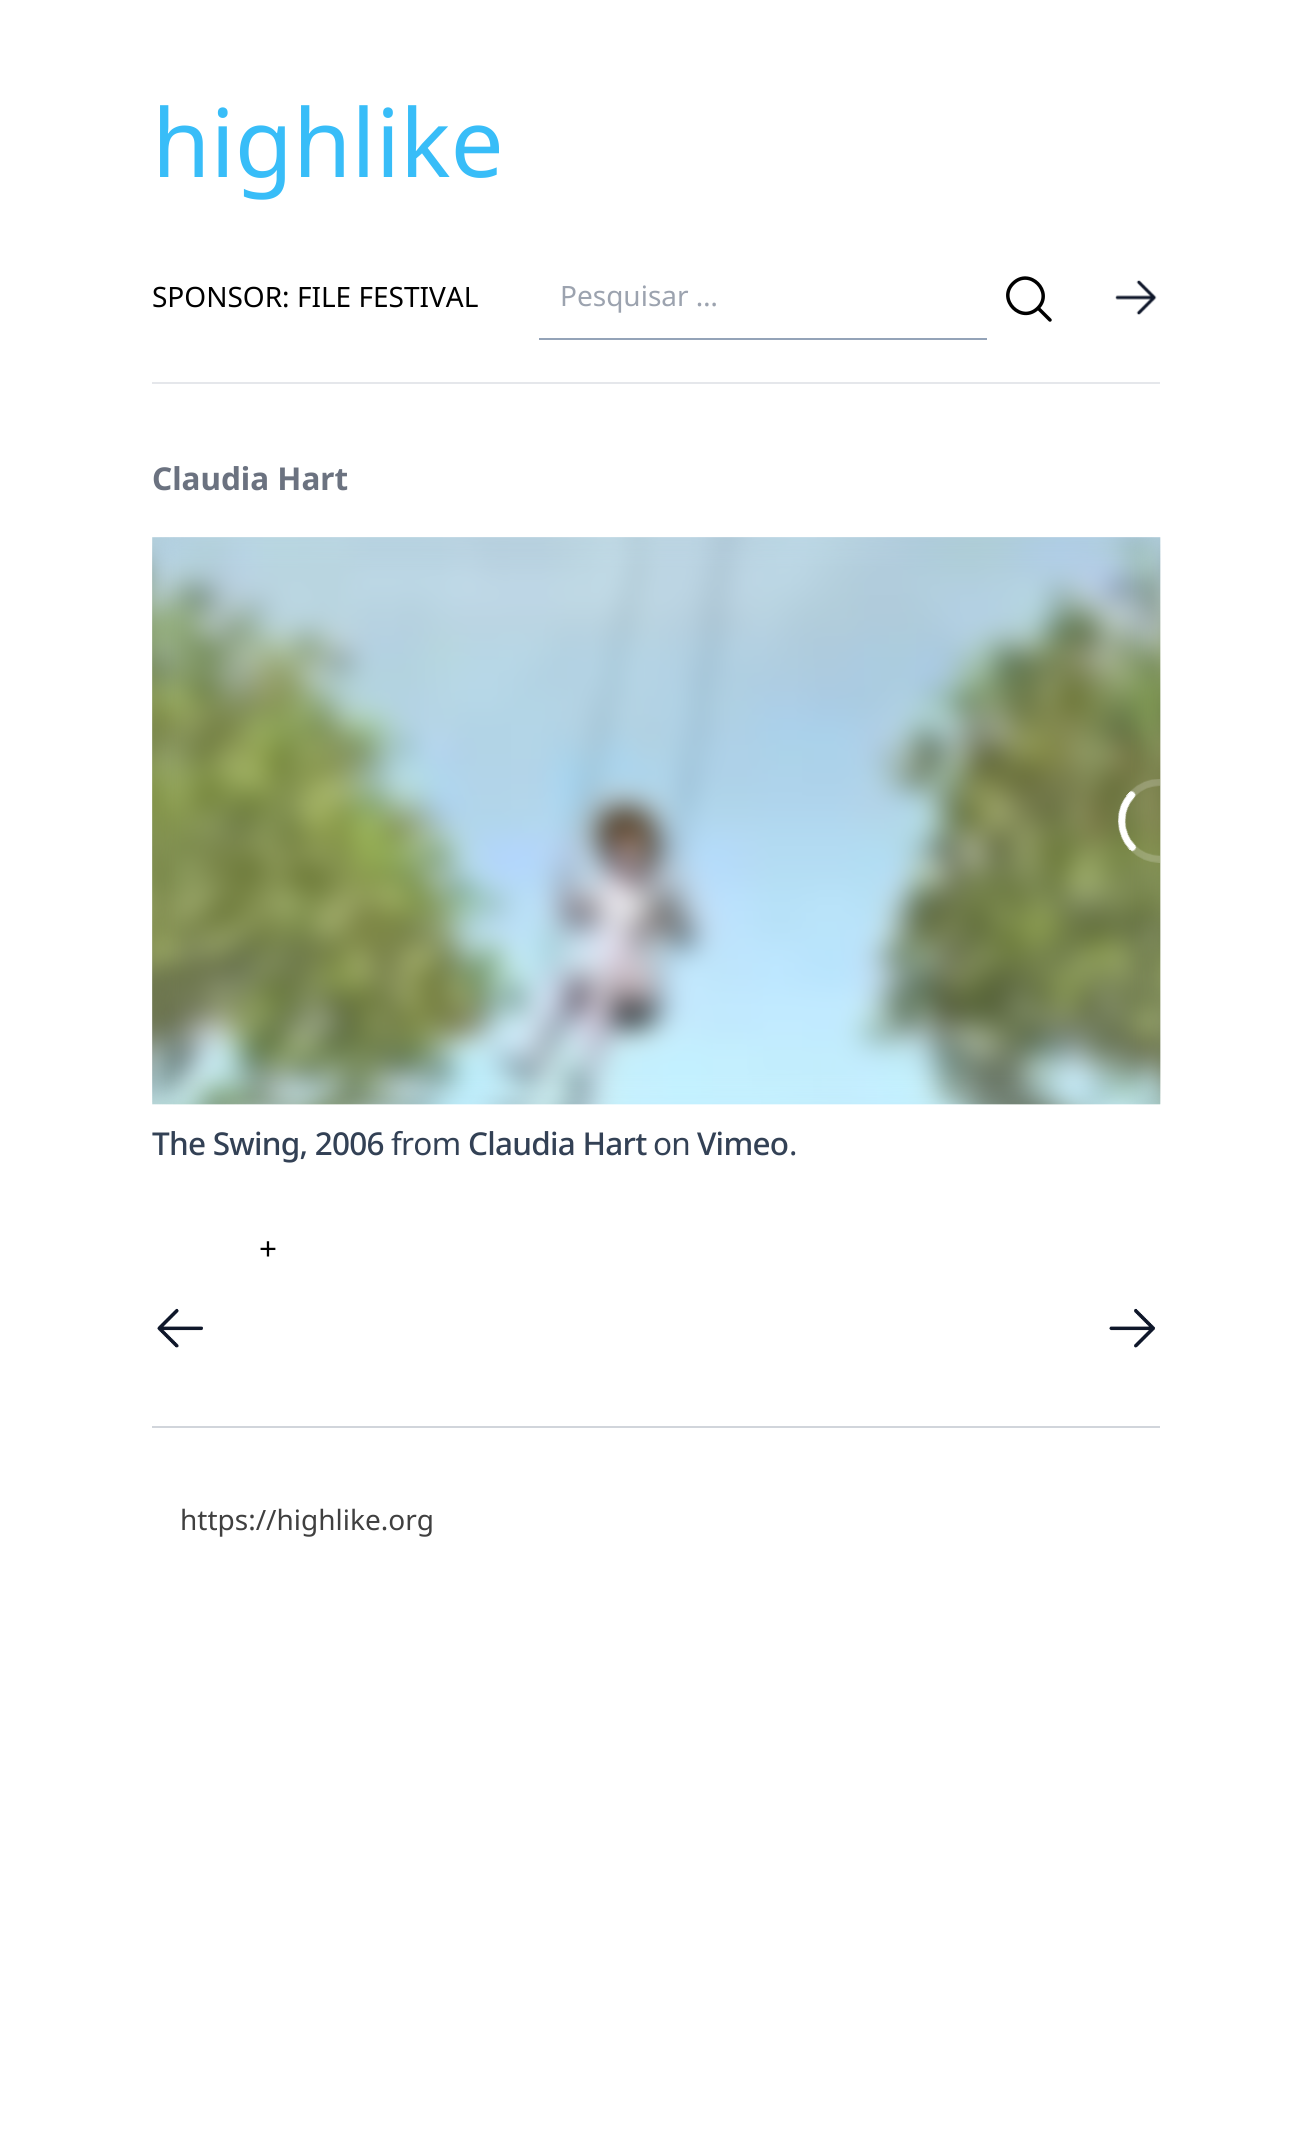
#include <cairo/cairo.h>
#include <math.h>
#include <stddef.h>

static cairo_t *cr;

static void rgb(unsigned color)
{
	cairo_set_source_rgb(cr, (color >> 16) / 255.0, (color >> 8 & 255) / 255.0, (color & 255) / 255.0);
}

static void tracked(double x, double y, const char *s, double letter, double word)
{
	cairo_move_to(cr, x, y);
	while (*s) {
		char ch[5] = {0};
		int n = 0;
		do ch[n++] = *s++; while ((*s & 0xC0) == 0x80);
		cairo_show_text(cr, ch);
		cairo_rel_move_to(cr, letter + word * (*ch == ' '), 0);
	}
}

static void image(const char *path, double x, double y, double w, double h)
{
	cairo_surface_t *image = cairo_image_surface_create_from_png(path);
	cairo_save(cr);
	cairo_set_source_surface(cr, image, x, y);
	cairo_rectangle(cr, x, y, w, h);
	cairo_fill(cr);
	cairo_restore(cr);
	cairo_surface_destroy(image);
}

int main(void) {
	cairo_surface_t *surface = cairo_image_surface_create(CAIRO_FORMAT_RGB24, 1311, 2143);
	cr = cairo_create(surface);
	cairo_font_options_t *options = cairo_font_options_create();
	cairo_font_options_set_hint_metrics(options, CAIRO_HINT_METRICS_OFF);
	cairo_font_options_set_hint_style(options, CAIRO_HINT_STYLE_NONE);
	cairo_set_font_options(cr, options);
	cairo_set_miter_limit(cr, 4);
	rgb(0xffffff);
	cairo_paint(cr);
	rgb(0xe5e7eb);
	cairo_rectangle(cr, 152, 382, 1008, 2);
	cairo_fill(cr);
	rgb(0x94a3b8);
	cairo_rectangle(cr, 539, 338, 448, 2);
	cairo_fill(cr);
	cairo_new_path(cr);
	cairo_move_to(cr, 1050, 320);
	cairo_line_to(cr, 1038, 308);
	cairo_move_to(cr, 1038, 308);
	cairo_curve_to(cr, 1054, 292, 1029.5, 267, 1013, 283.5);
	cairo_curve_to(cr, 997, 299.5, 1021.5, 324.5, 1038, 308);
	cairo_close_path(cr);
	rgb(0x000000);
	cairo_set_line_width(cr, 3.5);
	cairo_set_line_cap(cr, CAIRO_LINE_CAP_ROUND);
	cairo_set_line_join(cr, CAIRO_LINE_JOIN_ROUND);
	cairo_stroke(cr);
	image("img/1.png", 1115, 280, 42, 35);
	image("img/2.png", 152, 537, 1009, 568);
	image("img/3.png", 157, 1308, 46, 40);
	image("img/4.png", 1109, 1308, 46, 40);
	rgb(0xd1d5db);
	cairo_rectangle(cr, 152, 1426, 1008, 2);
	cairo_fill(cr);
	cairo_select_font_face(cr, "Noto Sans", CAIRO_FONT_SLANT_NORMAL, CAIRO_FONT_WEIGHT_NORMAL);
	cairo_set_font_size(cr, 94.5);
	rgb(0x38bdf8);
	cairo_move_to(cr, 152, 177);
	cairo_show_text(cr, "highlike");
	cairo_set_font_size(cr, 28);
	rgb(0x000000);
	cairo_move_to(cr, 152, 307);
	cairo_show_text(cr, "SPONSOR: FILE FESTIVAL");
	rgb(0x9ca3af);
	cairo_move_to(cr, 560, 306);
	cairo_show_text(cr, "Pesquisar …");
	cairo_select_font_face(cr, "Noto Sans", CAIRO_FONT_SLANT_NORMAL, CAIRO_FONT_WEIGHT_BOLD);
	cairo_set_font_size(cr, 31.5);
	rgb(0x6b7280);
	cairo_move_to(cr, 152, 490);
	cairo_show_text(cr, "Claudia Hart");
	cairo_select_font_face(cr, "Noto Sans Medium", CAIRO_FONT_SLANT_NORMAL, CAIRO_FONT_WEIGHT_NORMAL);
	rgb(0x334155);
	tracked(152, 1155, "The Swing, 2006", -0.75, 0);
	cairo_select_font_face(cr, "Noto Sans", CAIRO_FONT_SLANT_NORMAL, CAIRO_FONT_WEIGHT_NORMAL);
	tracked(391, 1155, "from", -0.75, 0);
	cairo_select_font_face(cr, "Noto Sans Medium", CAIRO_FONT_SLANT_NORMAL, CAIRO_FONT_WEIGHT_NORMAL);
	tracked(468, 1155, "Claudia Hart", -0.75, 0);
	cairo_select_font_face(cr, "Noto Sans", CAIRO_FONT_SLANT_NORMAL, CAIRO_FONT_WEIGHT_NORMAL);
	tracked(653, 1155, "on", -0.75, 0);
	cairo_select_font_face(cr, "Noto Sans Medium", CAIRO_FONT_SLANT_NORMAL, CAIRO_FONT_WEIGHT_NORMAL);
	tracked(697, 1155, "Vimeo", -0.75, 0);
	cairo_select_font_face(cr, "Noto Sans", CAIRO_FONT_SLANT_NORMAL, CAIRO_FONT_WEIGHT_NORMAL);
	tracked(789, 1155, ".", -0.75, 0);
	rgb(0x000000);
	cairo_move_to(cr, 259, 1260);
	cairo_show_text(cr, "+");
	cairo_set_font_size(cr, 28);
	rgb(0x404040);
	cairo_move_to(cr, 180, 1530);
	cairo_show_text(cr, "https://highlike.org");
	cairo_surface_write_to_png(surface, "page.png");
	cairo_font_options_destroy(options);
	cairo_destroy(cr);
	cairo_surface_destroy(surface);
	return 0;
}
